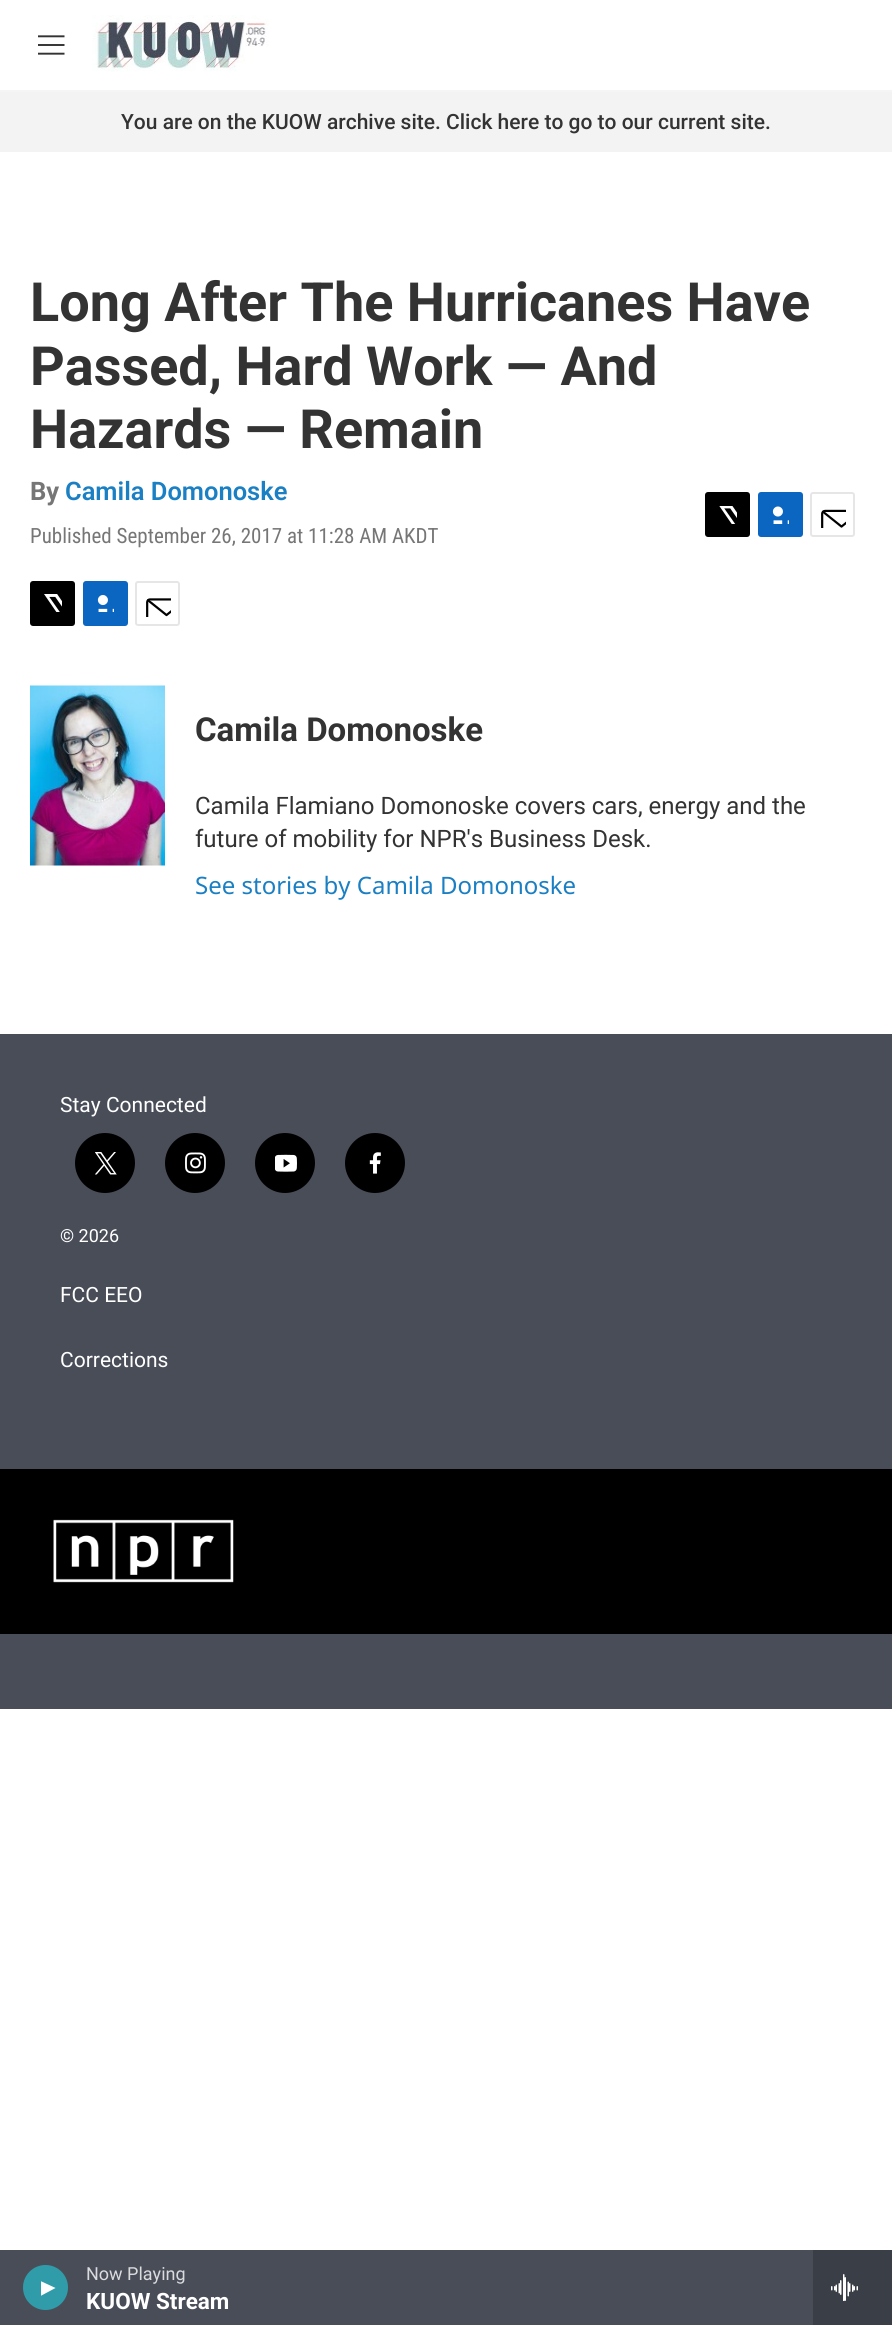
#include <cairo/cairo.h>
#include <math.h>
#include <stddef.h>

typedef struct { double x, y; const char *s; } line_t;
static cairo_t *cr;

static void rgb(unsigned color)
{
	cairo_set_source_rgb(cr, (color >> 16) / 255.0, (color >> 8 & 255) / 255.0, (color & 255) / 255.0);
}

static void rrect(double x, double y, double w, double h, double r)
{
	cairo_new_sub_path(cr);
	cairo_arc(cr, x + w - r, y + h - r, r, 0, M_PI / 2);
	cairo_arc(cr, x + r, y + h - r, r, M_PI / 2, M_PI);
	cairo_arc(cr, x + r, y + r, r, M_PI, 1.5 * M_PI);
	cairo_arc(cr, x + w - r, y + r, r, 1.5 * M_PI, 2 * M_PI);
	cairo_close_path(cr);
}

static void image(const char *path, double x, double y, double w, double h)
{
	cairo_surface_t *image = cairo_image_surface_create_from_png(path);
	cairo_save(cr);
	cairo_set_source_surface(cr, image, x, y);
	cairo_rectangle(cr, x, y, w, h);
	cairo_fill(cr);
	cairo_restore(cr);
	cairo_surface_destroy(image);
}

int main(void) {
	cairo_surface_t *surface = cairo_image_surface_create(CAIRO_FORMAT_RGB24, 892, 2325);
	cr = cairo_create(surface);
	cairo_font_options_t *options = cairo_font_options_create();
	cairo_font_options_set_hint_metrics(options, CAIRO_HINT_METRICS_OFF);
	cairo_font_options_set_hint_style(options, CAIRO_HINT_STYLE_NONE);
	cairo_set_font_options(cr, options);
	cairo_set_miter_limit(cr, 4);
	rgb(0xffffff);
	cairo_paint(cr);
	rgb(0xf3f3f3);
	cairo_rectangle(cr, 0, 92, 892, 60);
	cairo_fill(cr);
	rgb(0x000000);
	rrect(705, 492, 45, 45, 3);
	cairo_fill(cr);
	image("img/1.png", 719, 506, 18, 18);
	rgb(0x0a66c1);
	rrect(758, 492, 45, 45, 3);
	cairo_fill(cr);
	image("img/2.png", 772, 506, 17, 18);
	rrect(811, 493, 43, 43, 2);
	rgb(0xe6e6e6);
	cairo_stroke(cr);
	image("img/3.png", 821, 509, 25, 19);
	rgb(0x000000);
	rrect(30, 581, 45, 45, 3);
	cairo_fill(cr);
	image("img/4.png", 44, 594, 18, 18);
	rgb(0x0a66c1);
	rrect(83, 581, 45, 45, 3);
	cairo_fill(cr);
	image("img/5.png", 97, 595, 17, 17);
	rrect(136, 582, 43, 43, 2);
	rgb(0xe6e6e6);
	cairo_stroke(cr);
	image("img/6.png", 146, 598, 25, 19);
	image("img/7.png", 30, 685, 135, 181);
	rgb(0x494d58);
	cairo_rectangle(cr, 0, 1034, 892, 675);
	cairo_fill(cr);
	rgb(0x000000);
	cairo_arc(cr, 105, 1163, 30, 0, 2 * M_PI);
	cairo_fill(cr);
	image("img/8.png", 95, 1152, 22, 23);
	cairo_arc(cr, 195, 1163, 30, 0, 2 * M_PI);
	cairo_fill(cr);
	image("img/9.png", 185, 1152, 21, 22);
	cairo_arc(cr, 285, 1163, 30, 0, 2 * M_PI);
	cairo_fill(cr);
	image("img/10.png", 275, 1154, 22, 18);
	cairo_arc(cr, 375, 1163, 30, 0, 2 * M_PI);
	cairo_fill(cr);
	image("img/11.png", 369, 1152, 12, 22);
	cairo_rectangle(cr, 0, 1469, 892, 165);
	cairo_fill(cr);
	image("img/12.png", 53, 1519, 181, 64);
	rgb(0xf5f5f5);
	cairo_rectangle(cr, 0, 90, 892, 2);
	cairo_fill(cr);
	image("img/13.png", 38, 35, 27, 20);
	image("img/14.png", 92, 15, 177, 57);
	rgb(0x494d58);
	cairo_rectangle(cr, 0, 2250, 813, 75);
	cairo_fill(cr);
	rgb(0x309ca9);
	cairo_arc(cr, 45.5, 2287.5, 22.5, 0, 2 * M_PI);
	cairo_fill(cr);
	cairo_save(cr);
	cairo_rectangle(cr, 41, 2280, 15, 17);
	cairo_clip(cr);
	rgb(0xffffff);
	cairo_new_path(cr);
	cairo_move_to(cr, 40.5, 2281);
	cairo_line_to(cr, 55.5, 2288);
	cairo_line_to(cr, 40.5, 2296);
	cairo_close_path(cr);
	cairo_fill(cr);
	cairo_restore(cr);
	rgb(0x3a3e46);
	cairo_rectangle(cr, 813, 2250, 79, 75);
	cairo_fill(cr);
	image("img/15.png", 831, 2274, 27, 27);
	cairo_select_font_face(cr, "Roboto Medium", CAIRO_FONT_SLANT_NORMAL, CAIRO_FONT_WEIGHT_NORMAL);
	cairo_set_font_size(cr, 21);
	rgb(0x333333);
	cairo_move_to(cr, 121, 129);
	cairo_show_text(cr, "You are on the KUOW archive site. Click here to go to our current site.");
	cairo_select_font_face(cr, "Roboto", CAIRO_FONT_SLANT_NORMAL, CAIRO_FONT_WEIGHT_BOLD);
	cairo_set_font_size(cr, 54);
	{
		static const line_t items[] = {
			{30, 321, "Long After The Hurricanes Have"},
			{30, 385, "Passed, Hard Work — And"},
			{30, 448, "Hazards — Remain"},
		};
		for (size_t i = 0; i < sizeof items / sizeof *items; i++) {
			cairo_move_to(cr, items[i].x, items[i].y);
			cairo_show_text(cr, items[i].s);
		}
	}
	cairo_set_font_size(cr, 25.5);
	rgb(0x767676);
	cairo_move_to(cr, 30, 500);
	cairo_show_text(cr, "By");
	cairo_select_font_face(cr, "Roboto SemiBold", CAIRO_FONT_SLANT_NORMAL, CAIRO_FONT_WEIGHT_NORMAL);
	rgb(0x1a7fc3);
	cairo_move_to(cr, 65, 500);
	cairo_show_text(cr, "Camila Domonoske");
	cairo_select_font_face(cr, "Roboto Condensed", CAIRO_FONT_SLANT_NORMAL, CAIRO_FONT_WEIGHT_NORMAL);
	cairo_set_font_size(cr, 21);
	rgb(0x767676);
	cairo_move_to(cr, 30, 543);
	cairo_show_text(cr, "Published September 26, 2017 at 11:28 AM AKDT");
	cairo_select_font_face(cr, "Roboto", CAIRO_FONT_SLANT_NORMAL, CAIRO_FONT_WEIGHT_BOLD);
	cairo_set_font_size(cr, 33);
	rgb(0x333333);
	cairo_move_to(cr, 195, 741);
	cairo_show_text(cr, "Camila Domonoske");
	cairo_select_font_face(cr, "Roboto", CAIRO_FONT_SLANT_NORMAL, CAIRO_FONT_WEIGHT_NORMAL);
	cairo_set_font_size(cr, 24);
	cairo_move_to(cr, 195, 814);
	cairo_show_text(cr, "Camila Flamiano Domonoske covers cars, energy and the");
	cairo_move_to(cr, 195, 847);
	cairo_show_text(cr, "future of mobility for NPR's Business Desk.");
	cairo_select_font_face(cr, "Noto Sans", CAIRO_FONT_SLANT_NORMAL, CAIRO_FONT_WEIGHT_NORMAL);
	rgb(0x1a7fc3);
	cairo_move_to(cr, 195, 894);
	cairo_show_text(cr, "See stories by Camila Domonoske");
	cairo_select_font_face(cr, "Roboto", CAIRO_FONT_SLANT_NORMAL, CAIRO_FONT_WEIGHT_NORMAL);
	cairo_set_font_size(cr, 21);
	rgb(0xffffff);
	cairo_move_to(cr, 60, 1112);
	cairo_show_text(cr, "Stay Connected");
	cairo_set_font_size(cr, 18);
	cairo_move_to(cr, 60, 1242);
	cairo_show_text(cr, "© 2026");
	cairo_set_font_size(cr, 21);
	cairo_move_to(cr, 60, 1302);
	cairo_show_text(cr, "FCC EEO");
	cairo_move_to(cr, 60, 1367);
	cairo_show_text(cr, "Corrections");
	cairo_set_font_size(cr, 18);
	rgb(0xdbdbde);
	cairo_move_to(cr, 86, 2280);
	cairo_show_text(cr, "Now Playing");
	cairo_select_font_face(cr, "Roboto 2", CAIRO_FONT_SLANT_NORMAL, CAIRO_FONT_WEIGHT_BOLD);
	cairo_set_font_size(cr, 22.5);
	rgb(0xffffff);
	cairo_move_to(cr, 86, 2309);
	cairo_show_text(cr, "KUOW Stream");
	cairo_surface_write_to_png(surface, "page.png");
	cairo_font_options_destroy(options);
	cairo_destroy(cr);
	cairo_surface_destroy(surface);
	return 0;
}
